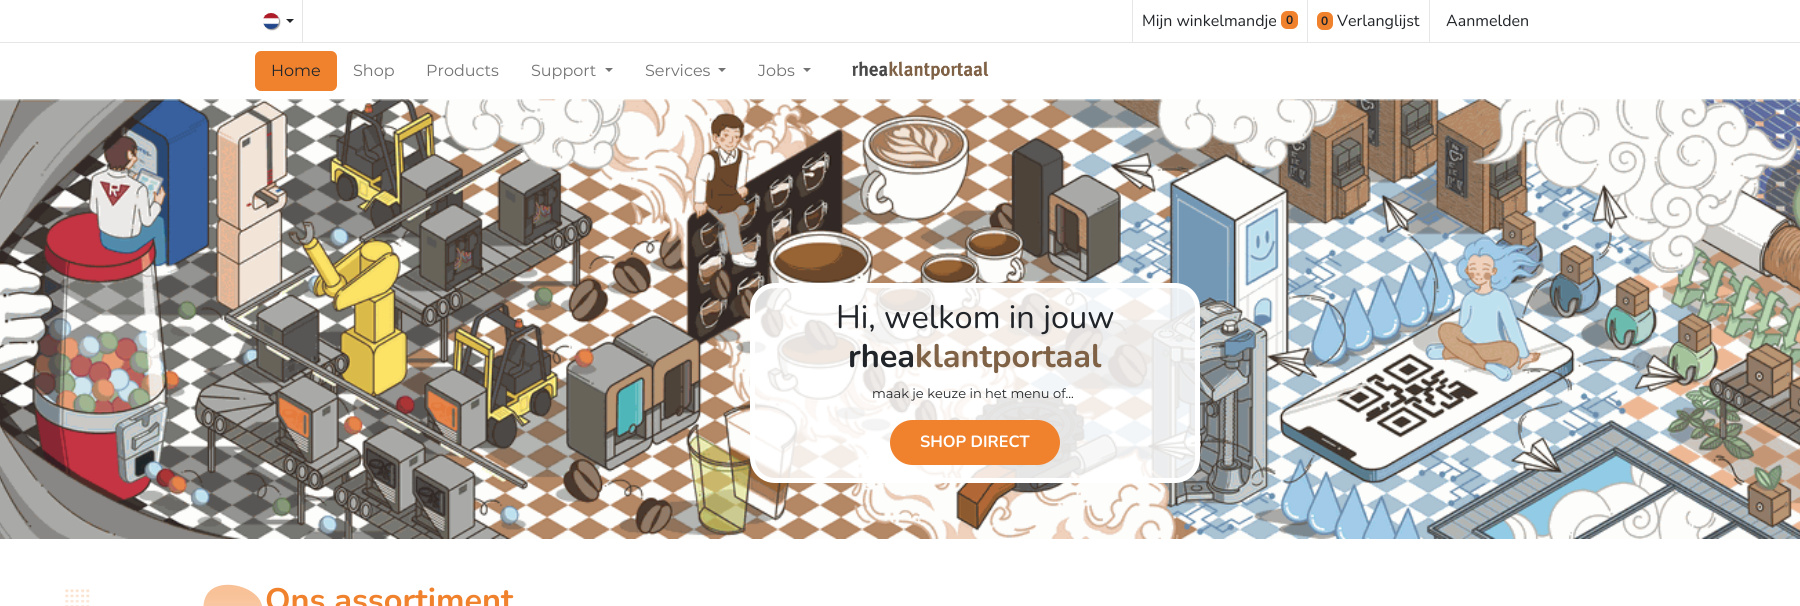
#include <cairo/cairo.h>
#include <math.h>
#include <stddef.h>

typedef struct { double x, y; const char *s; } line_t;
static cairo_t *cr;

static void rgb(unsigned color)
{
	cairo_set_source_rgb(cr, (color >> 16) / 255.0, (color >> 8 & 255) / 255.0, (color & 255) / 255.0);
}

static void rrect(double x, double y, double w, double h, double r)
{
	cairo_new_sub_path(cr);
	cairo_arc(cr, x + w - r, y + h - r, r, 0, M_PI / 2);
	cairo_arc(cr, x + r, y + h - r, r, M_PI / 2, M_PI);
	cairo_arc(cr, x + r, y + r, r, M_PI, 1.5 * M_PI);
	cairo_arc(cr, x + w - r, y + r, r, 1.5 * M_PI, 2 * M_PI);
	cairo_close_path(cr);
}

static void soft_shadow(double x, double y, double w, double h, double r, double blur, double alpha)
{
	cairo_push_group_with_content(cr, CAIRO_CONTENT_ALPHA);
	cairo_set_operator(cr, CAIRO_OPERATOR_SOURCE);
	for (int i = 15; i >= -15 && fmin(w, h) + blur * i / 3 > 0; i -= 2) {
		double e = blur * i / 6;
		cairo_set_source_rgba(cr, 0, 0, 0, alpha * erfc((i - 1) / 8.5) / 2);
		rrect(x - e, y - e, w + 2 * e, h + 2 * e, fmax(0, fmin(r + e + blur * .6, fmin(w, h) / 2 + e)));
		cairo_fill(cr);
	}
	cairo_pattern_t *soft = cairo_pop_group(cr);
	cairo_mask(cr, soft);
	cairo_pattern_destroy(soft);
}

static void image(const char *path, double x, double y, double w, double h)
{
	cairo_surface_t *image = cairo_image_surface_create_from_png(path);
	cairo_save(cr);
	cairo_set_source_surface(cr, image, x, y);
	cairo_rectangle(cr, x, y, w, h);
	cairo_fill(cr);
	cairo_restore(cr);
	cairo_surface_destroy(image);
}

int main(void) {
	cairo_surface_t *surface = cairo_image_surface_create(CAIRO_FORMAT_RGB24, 1800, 606);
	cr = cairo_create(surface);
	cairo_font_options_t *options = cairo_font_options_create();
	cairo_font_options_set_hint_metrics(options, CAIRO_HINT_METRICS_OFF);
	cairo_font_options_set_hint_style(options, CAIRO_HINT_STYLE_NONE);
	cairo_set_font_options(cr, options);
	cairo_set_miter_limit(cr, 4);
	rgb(0xffffff);
	cairo_paint(cr);
	rgb(0xe6e6e6);
	cairo_rectangle(cr, 0, 42, 1800, 1);
	cairo_fill(cr);
	cairo_rectangle(cr, 302, 0, 1, 42);
	cairo_fill(cr);
	rgb(0x000000);
	soft_shadow(264, 14, 16, 16, 8, 0.5, 0.43);
	image("img/1.png", 263, 13, 16, 16);
	rgb(0x212529);
	cairo_new_path(cr);
	cairo_move_to(cr, 286, 19);
	cairo_line_to(cr, 294, 19);
	cairo_line_to(cr, 290, 23);
	cairo_close_path(cr);
	cairo_fill(cr);
	rgb(0xe6e6e6);
	cairo_rectangle(cr, 1132, 0, 1, 42);
	cairo_fill(cr);
	rgb(0xf1822d);
	rrect(1281, 11, 17, 18, 6);
	cairo_fill(cr);
	rgb(0xe6e6e6);
	cairo_rectangle(cr, 1307, 0, 1, 42);
	cairo_fill(cr);
	rgb(0xf1822d);
	rrect(1317, 12, 16, 18, 6);
	cairo_fill(cr);
	rgb(0xe6e6e6);
	cairo_rectangle(cr, 1429, 0, 1, 42);
	cairo_fill(cr);
	rgb(0xf1822d);
	rrect(255, 51, 82, 40, 6);
	cairo_fill(cr);
	rgb(0x737373);
	cairo_new_path(cr);
	cairo_move_to(cr, 605, 68);
	cairo_line_to(cr, 613, 68);
	cairo_line_to(cr, 609, 72);
	cairo_close_path(cr);
	cairo_fill(cr);
	cairo_new_path(cr);
	cairo_move_to(cr, 718, 68);
	cairo_line_to(cr, 726, 68);
	cairo_line_to(cr, 722, 72);
	cairo_close_path(cr);
	cairo_fill(cr);
	cairo_new_path(cr);
	cairo_move_to(cr, 803, 68);
	cairo_line_to(cr, 811, 68);
	cairo_line_to(cr, 807, 72);
	cairo_close_path(cr);
	cairo_fill(cr);
	image("img/2.png", 852, 61, 137, 19);
	image("img/3.png", 0, 99, 1800, 440);
	cairo_set_source_rgba(cr, 1, 1, 1, 0.85);
	rrect(752.5, 285.5, 445, 195, 22.5);
	cairo_fill_preserve(cr);
	rgb(0xffffff);
	cairo_set_line_width(cr, 5);
	cairo_stroke(cr);
	rgb(0xf1822d);
	rrect(890, 420, 170, 45, 22.5);
	cairo_fill(cr);
	image("img/4.png", 65, 584, 198, 22);
	cairo_select_font_face(cr, "Nunito", CAIRO_FONT_SLANT_NORMAL, CAIRO_FONT_WEIGHT_NORMAL);
	cairo_set_font_size(cr, 16);
	rgb(0x212529);
	cairo_move_to(cr, 1142, 26);
	cairo_show_text(cr, "Mijn winkelmandje");
	cairo_select_font_face(cr, "Nunito", CAIRO_FONT_SLANT_NORMAL, CAIRO_FONT_WEIGHT_BOLD);
	cairo_set_font_size(cr, 12);
	cairo_move_to(cr, 1286, 24);
	cairo_show_text(cr, "0");
	cairo_move_to(cr, 1321, 25);
	cairo_show_text(cr, "0");
	cairo_select_font_face(cr, "Nunito", CAIRO_FONT_SLANT_NORMAL, CAIRO_FONT_WEIGHT_NORMAL);
	cairo_set_font_size(cr, 16);
	cairo_move_to(cr, 1337, 26);
	cairo_show_text(cr, "Verlanglijst");
	cairo_move_to(cr, 1446, 26);
	cairo_show_text(cr, "Aanmelden");
	cairo_select_font_face(cr, "Montserrat", CAIRO_FONT_SLANT_NORMAL, CAIRO_FONT_WEIGHT_NORMAL);
	cairo_move_to(cr, 271, 76);
	cairo_show_text(cr, "Home");
	rgb(0x737373);
	{
		static const line_t items[] = {
			{353, 76, "Shop"},
			{426, 76, "Products"},
			{531, 76, "Support"},
			{645, 76, "Services"},
			{758, 76, "Jobs"},
		};
		for (size_t i = 0; i < sizeof items / sizeof *items; i++) {
			cairo_move_to(cr, items[i].x, items[i].y);
			cairo_show_text(cr, items[i].s);
		}
	}
	cairo_select_font_face(cr, "Nunito", CAIRO_FONT_SLANT_NORMAL, CAIRO_FONT_WEIGHT_NORMAL);
	cairo_set_font_size(cr, 32.5);
	rgb(0x212529);
	cairo_move_to(cr, 836, 328);
	cairo_show_text(cr, "Hi, welkom in jouw");
	cairo_select_font_face(cr, "Nunito", CAIRO_FONT_SLANT_NORMAL, CAIRO_FONT_WEIGHT_BOLD);
	cairo_move_to(cr, 848, 367);
	cairo_show_text(cr, "rhea");
	rgb(0x7f6145);
	cairo_move_to(cr, 915, 367);
	cairo_show_text(cr, "klantportaal");
	cairo_select_font_face(cr, "Montserrat", CAIRO_FONT_SLANT_NORMAL, CAIRO_FONT_WEIGHT_NORMAL);
	cairo_set_font_size(cr, 13);
	rgb(0x212529);
	cairo_move_to(cr, 872, 398);
	cairo_show_text(cr, "maak je keuze in het menu of...");
	cairo_select_font_face(cr, "Nunito", CAIRO_FONT_SLANT_NORMAL, CAIRO_FONT_WEIGHT_BOLD);
	cairo_set_font_size(cr, 16.25);
	rgb(0xffffff);
	cairo_move_to(cr, 920, 447);
	cairo_show_text(cr, "SHOP DIRECT");
	cairo_set_font_size(cr, 32.5);
	rgb(0xf1822d);
	cairo_move_to(cr, 265, 611);
	cairo_show_text(cr, "Ons assortiment");
	cairo_surface_write_to_png(surface, "page.png");
	cairo_font_options_destroy(options);
	cairo_destroy(cr);
	cairo_surface_destroy(surface);
	return 0;
}
